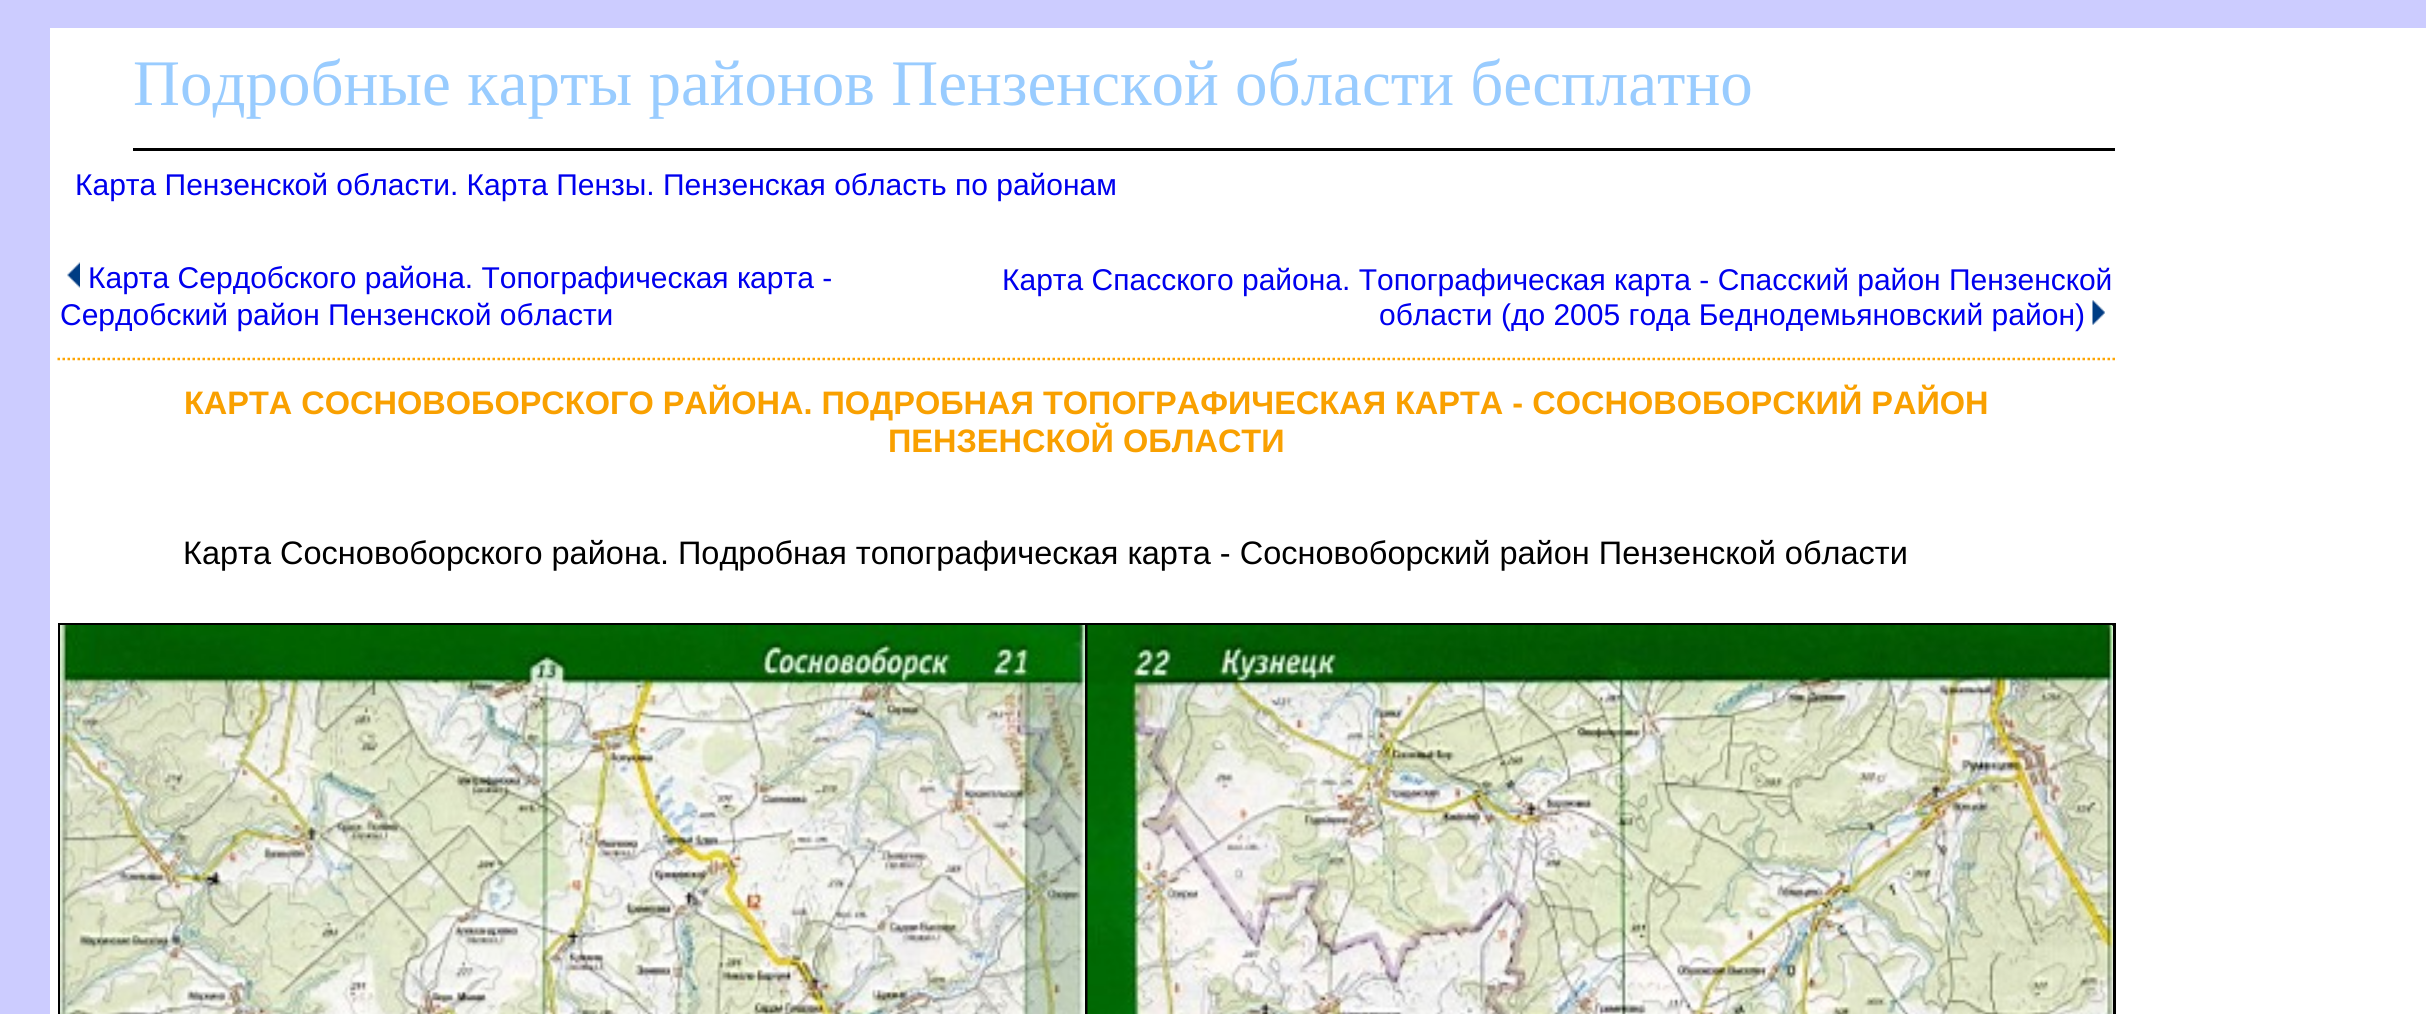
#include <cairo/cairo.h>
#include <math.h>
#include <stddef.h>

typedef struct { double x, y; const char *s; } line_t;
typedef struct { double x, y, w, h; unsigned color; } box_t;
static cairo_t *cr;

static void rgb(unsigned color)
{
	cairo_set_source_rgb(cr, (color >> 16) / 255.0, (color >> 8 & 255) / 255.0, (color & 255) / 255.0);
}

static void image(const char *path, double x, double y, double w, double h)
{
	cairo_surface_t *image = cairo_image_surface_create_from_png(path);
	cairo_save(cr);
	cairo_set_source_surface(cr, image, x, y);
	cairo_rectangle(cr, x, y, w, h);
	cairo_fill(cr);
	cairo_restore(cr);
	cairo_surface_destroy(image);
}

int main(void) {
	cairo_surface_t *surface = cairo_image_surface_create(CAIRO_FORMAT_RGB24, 2426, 1014);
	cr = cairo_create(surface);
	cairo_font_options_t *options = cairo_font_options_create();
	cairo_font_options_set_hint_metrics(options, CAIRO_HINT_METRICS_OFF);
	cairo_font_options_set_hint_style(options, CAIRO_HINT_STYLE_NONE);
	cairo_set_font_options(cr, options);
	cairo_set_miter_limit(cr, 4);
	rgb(0xccccff);
	cairo_paint(cr);
	rgb(0xffffff);
	cairo_rectangle(cr, 50, 28, 2376, 986);
	cairo_fill(cr);
	rgb(0x000000);
	cairo_rectangle(cr, 133, 148, 1982, 3);
	cairo_fill(cr);
	image("img/1.png", 67, 262, 13, 26);
	image("img/2.png", 2092, 300, 13, 25);
	cairo_new_path(cr);
	cairo_move_to(cr, 57.5, 359);
	cairo_line_to(cr, 2115, 359);
	rgb(0xffa500);
	cairo_set_line_width(cr, 2.5);
	cairo_set_dash(cr, (double[]){2.5, 2.5}, 2, 0);
	cairo_stroke(cr);
	{
		static const box_t items[] = {
			{1085, 623, 1030, 3, 0x000000},
			{1085, 623, 3, 391, 0x000000},
			{58, 623, 1030, 3, 0x000000},
			{58, 623, 3, 391, 0x000000},
		};
		for (size_t i = 0; i < sizeof items / sizeof *items; i++) {
			rgb(items[i].color);
			cairo_rectangle(cr, items[i].x, items[i].y, items[i].w, items[i].h);
			cairo_fill(cr);
		}
	}
	image("img/3.png", 60, 625, 1025, 389);
	cairo_rectangle(cr, 2113, 623, 3, 391);
	cairo_fill(cr);
	image("img/4.png", 1087, 625, 1026, 389);
	cairo_select_font_face(cr, "Liberation Serif", CAIRO_FONT_SLANT_NORMAL, CAIRO_FONT_WEIGHT_NORMAL);
	cairo_set_font_size(cr, 65);
	rgb(0x99ccff);
	cairo_move_to(cr, 133, 105);
	cairo_show_text(cr, "Подробные карты районов Пензенской области бесплатно");
	cairo_select_font_face(cr, "Liberation Sans", CAIRO_FONT_SLANT_NORMAL, CAIRO_FONT_WEIGHT_NORMAL);
	cairo_set_font_size(cr, 30);
	rgb(0x0000ee);
	{
		static const line_t items[] = {
			{75, 195, "Карта Пензенской области. Карта Пензы. Пензенская область по районам"},
			{88, 288, "Карта Сердобского района. Топографическая карта -"},
			{60, 325, "Сердобский район Пензенской области"},
			{1002, 290, "Карта Спасского района. Топографическая карта - Спасский район Пензенской"},
			{1379, 325, "области (до 2005 года Беднодемьяновский район)"},
		};
		for (size_t i = 0; i < sizeof items / sizeof *items; i++) {
			cairo_move_to(cr, items[i].x, items[i].y);
			cairo_show_text(cr, items[i].s);
		}
	}
	cairo_select_font_face(cr, "Liberation Sans", CAIRO_FONT_SLANT_NORMAL, CAIRO_FONT_WEIGHT_BOLD);
	cairo_set_font_size(cr, 32.5);
	rgb(0xf9a000);
	cairo_move_to(cr, 184, 414);
	cairo_show_text(cr, "КАРТА СОСНОВОБОРСКОГО РАЙОНА. ПОДРОБНАЯ ТОПОГРАФИЧЕСКАЯ КАРТА - СОСНОВОБОРСКИЙ РАЙОН");
	cairo_move_to(cr, 888, 452);
	cairo_show_text(cr, "ПЕНЗЕНСКОЙ ОБЛАСТИ");
	cairo_select_font_face(cr, "Liberation Sans", CAIRO_FONT_SLANT_NORMAL, CAIRO_FONT_WEIGHT_NORMAL);
	rgb(0x000000);
	cairo_move_to(cr, 183, 564);
	cairo_show_text(cr, "Карта Сосновоборского района. Подробная топографическая карта - Сосновоборский район Пензенской области");
	cairo_surface_write_to_png(surface, "page.png");
	cairo_font_options_destroy(options);
	cairo_destroy(cr);
	cairo_surface_destroy(surface);
	return 0;
}
